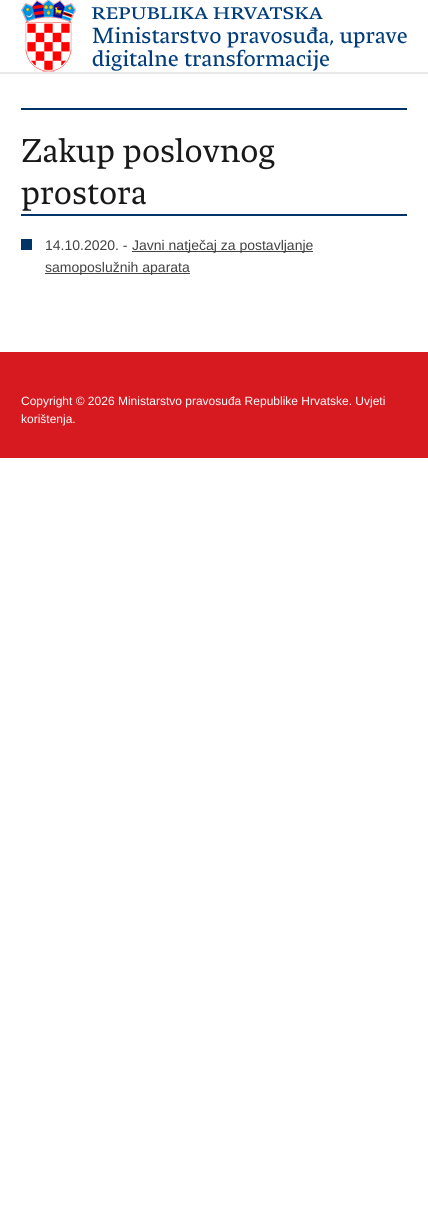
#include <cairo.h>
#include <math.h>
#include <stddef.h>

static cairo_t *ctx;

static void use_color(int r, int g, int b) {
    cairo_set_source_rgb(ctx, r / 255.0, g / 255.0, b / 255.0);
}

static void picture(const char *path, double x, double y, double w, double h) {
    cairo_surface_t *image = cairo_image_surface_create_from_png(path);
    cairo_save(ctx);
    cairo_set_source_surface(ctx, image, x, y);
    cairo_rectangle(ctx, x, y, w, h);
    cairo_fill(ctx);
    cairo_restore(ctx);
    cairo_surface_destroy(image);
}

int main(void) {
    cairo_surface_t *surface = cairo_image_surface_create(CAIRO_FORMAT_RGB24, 428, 1230);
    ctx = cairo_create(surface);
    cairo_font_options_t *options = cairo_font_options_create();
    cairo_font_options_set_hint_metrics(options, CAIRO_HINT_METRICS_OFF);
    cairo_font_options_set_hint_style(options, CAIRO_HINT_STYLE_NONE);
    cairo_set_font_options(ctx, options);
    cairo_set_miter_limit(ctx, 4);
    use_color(255, 255, 255);
    cairo_paint(ctx);
    use_color(233, 233, 233);
    cairo_rectangle(ctx, 0, 72, 428, 2);
    cairo_fill(ctx);
    picture("img1.png", 21, 0, 386, 72);
    use_color(0, 51, 102);
    cairo_rectangle(ctx, 21, 108, 386, 2);
    cairo_fill(ctx);
    cairo_rectangle(ctx, 21, 214, 386, 2);
    cairo_fill(ctx);
    cairo_select_font_face(ctx, "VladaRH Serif", CAIRO_FONT_SLANT_NORMAL, CAIRO_FONT_WEIGHT_NORMAL);
    cairo_set_font_size(ctx, 35);
    use_color(25, 25, 25);
    cairo_move_to(ctx, 21, 162);
    cairo_show_text(ctx, "Zakup poslovnog");
    cairo_move_to(ctx, 21, 204);
    cairo_show_text(ctx, "prostora");
    use_color(0, 51, 102);
    cairo_rectangle(ctx, 21, 239, 11, 11);
    cairo_fill(ctx);
    cairo_select_font_face(ctx, "Liberation Sans", CAIRO_FONT_SLANT_NORMAL, CAIRO_FONT_WEIGHT_NORMAL);
    cairo_set_font_size(ctx, 14);
    use_color(66, 66, 66);
    cairo_move_to(ctx, 45, 250);
    cairo_show_text(ctx, "14.10.2020. -");
    cairo_rectangle(ctx, 132, 251, 181, 1);
    cairo_fill(ctx);
    cairo_move_to(ctx, 132, 250);
    cairo_show_text(ctx, "Javni natječaj za postavljanje");
    cairo_rectangle(ctx, 45, 273, 145, 1);
    cairo_fill(ctx);
    cairo_move_to(ctx, 45, 272);
    cairo_show_text(ctx, "samoposlužnih aparata");
    use_color(215, 25, 32);
    cairo_rectangle(ctx, 0, 352, 428, 106);
    cairo_fill(ctx);
    cairo_set_font_size(ctx, 12);
    use_color(255, 255, 255);
    cairo_move_to(ctx, 21, 405);
    cairo_show_text(ctx, "Copyright © 2026 Ministarstvo pravosuđa Republike Hrvatske. Uvjeti");
    cairo_move_to(ctx, 21, 423);
    cairo_show_text(ctx, "korištenja.");
    cairo_surface_write_to_png(surface, "result.png");
    cairo_font_options_destroy(options);
    cairo_destroy(ctx);
    cairo_surface_destroy(surface);
    return 0;
}
